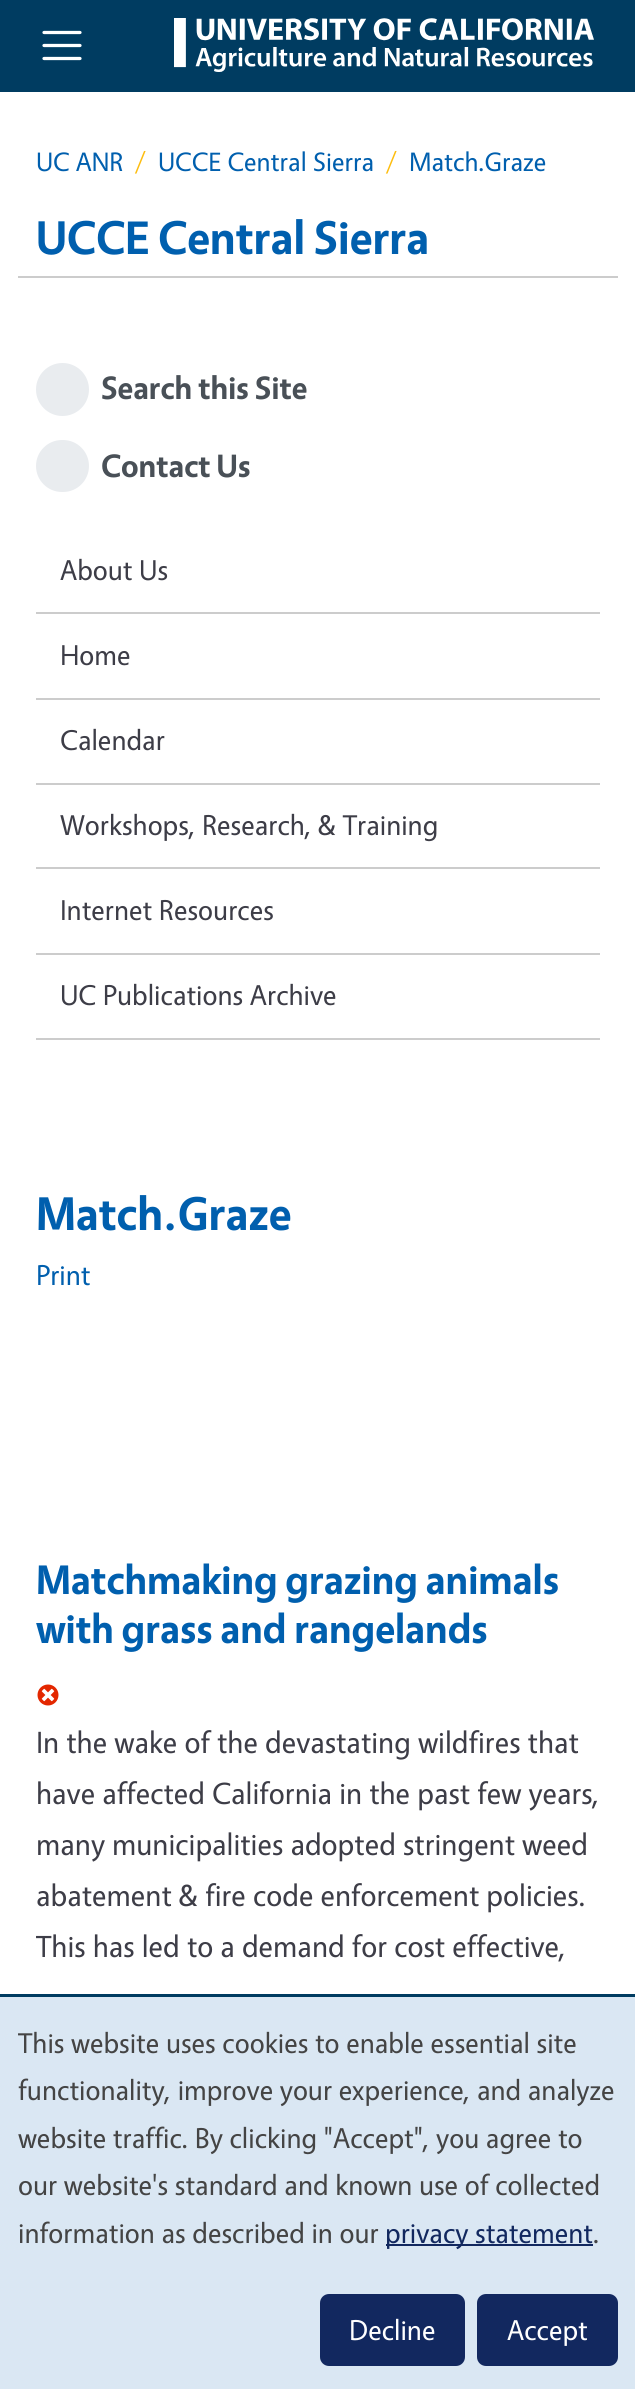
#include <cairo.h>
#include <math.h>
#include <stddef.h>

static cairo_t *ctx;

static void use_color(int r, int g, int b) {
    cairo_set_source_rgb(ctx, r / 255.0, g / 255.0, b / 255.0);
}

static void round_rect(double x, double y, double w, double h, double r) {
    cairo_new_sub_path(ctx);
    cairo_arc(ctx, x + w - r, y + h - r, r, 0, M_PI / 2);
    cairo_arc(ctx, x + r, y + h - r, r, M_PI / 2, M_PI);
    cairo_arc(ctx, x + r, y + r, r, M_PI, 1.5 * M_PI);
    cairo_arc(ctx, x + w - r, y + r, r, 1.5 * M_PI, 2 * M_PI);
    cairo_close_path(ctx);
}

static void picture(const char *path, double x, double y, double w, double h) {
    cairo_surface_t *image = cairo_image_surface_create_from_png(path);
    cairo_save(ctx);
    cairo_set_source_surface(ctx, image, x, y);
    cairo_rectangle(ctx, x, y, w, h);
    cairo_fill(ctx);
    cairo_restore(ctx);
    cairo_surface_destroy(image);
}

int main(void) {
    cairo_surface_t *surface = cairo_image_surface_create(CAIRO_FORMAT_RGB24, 635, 2389);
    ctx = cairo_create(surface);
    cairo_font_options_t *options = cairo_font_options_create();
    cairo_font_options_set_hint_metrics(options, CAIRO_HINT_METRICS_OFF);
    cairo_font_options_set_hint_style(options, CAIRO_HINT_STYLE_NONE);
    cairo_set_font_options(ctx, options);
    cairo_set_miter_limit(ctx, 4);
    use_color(255, 255, 255);
    cairo_paint(ctx);
    use_color(0, 60, 97);
    cairo_rectangle(ctx, 0, 0, 635, 92);
    cairo_fill(ctx);
    cairo_new_path(ctx);
    cairo_move_to(ctx, 44, 32.5);
    cairo_line_to(ctx, 80, 32.5);
    cairo_move_to(ctx, 44, 45.5);
    cairo_line_to(ctx, 80, 45.5);
    cairo_move_to(ctx, 44, 58.5);
    cairo_line_to(ctx, 80, 58.5);
    use_color(255, 255, 255);
    cairo_set_line_width(ctx, 3.2);
    cairo_set_line_cap(ctx, CAIRO_LINE_CAP_ROUND);
    cairo_stroke(ctx);
    picture("img1.png", 174, 18, 420, 54);
    cairo_select_font_face(ctx, "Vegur", CAIRO_FONT_SLANT_NORMAL, CAIRO_FONT_WEIGHT_NORMAL);
    cairo_set_font_size(ctx, 26.75);
    use_color(0, 95, 174);
    cairo_move_to(ctx, 36, 171);
    cairo_show_text(ctx, "UC ANR");
    use_color(253, 189, 16);
    cairo_move_to(ctx, 135, 171);
    cairo_show_text(ctx, "/");
    use_color(0, 95, 174);
    cairo_move_to(ctx, 158, 171);
    cairo_show_text(ctx, "UCCE Central Sierra");
    use_color(253, 189, 16);
    cairo_move_to(ctx, 386, 171);
    cairo_show_text(ctx, "/");
    use_color(0, 95, 174);
    cairo_move_to(ctx, 409, 171);
    cairo_show_text(ctx, "Match.Graze");
    use_color(204, 204, 204);
    cairo_rectangle(ctx, 18, 276, 600, 2);
    cairo_fill(ctx);
    cairo_select_font_face(ctx, "Vegur", CAIRO_FONT_SLANT_NORMAL, CAIRO_FONT_WEIGHT_BOLD);
    cairo_set_font_size(ctx, 47.5);
    use_color(0, 95, 174);
    cairo_move_to(ctx, 36, 254);
    cairo_show_text(ctx, "UCCE Central Sierra");
    use_color(233, 236, 239);
    cairo_new_path(ctx);
    cairo_arc(ctx, 62.5, 389.5, 26.5, 0, 2 * M_PI);
    cairo_fill(ctx);
    cairo_set_font_size(ctx, 32.5);
    use_color(73, 80, 87);
    cairo_move_to(ctx, 101, 399);
    cairo_show_text(ctx, "Search this Site");
    use_color(233, 236, 239);
    round_rect(36, 440, 53, 52, 26);
    cairo_fill(ctx);
    use_color(73, 80, 87);
    cairo_move_to(ctx, 101, 477);
    cairo_show_text(ctx, "Contact Us");
    use_color(204, 204, 204);
    cairo_rectangle(ctx, 36, 612, 564, 2);
    cairo_fill(ctx);
    cairo_select_font_face(ctx, "Vegur", CAIRO_FONT_SLANT_NORMAL, CAIRO_FONT_WEIGHT_NORMAL);
    cairo_set_font_size(ctx, 28.8);
    use_color(61, 61, 71);
    cairo_move_to(ctx, 60, 580);
    cairo_show_text(ctx, "About Us");
    use_color(204, 204, 204);
    cairo_rectangle(ctx, 36, 698, 564, 2);
    cairo_fill(ctx);
    use_color(61, 61, 71);
    cairo_move_to(ctx, 60, 665);
    cairo_show_text(ctx, "Home");
    use_color(204, 204, 204);
    cairo_rectangle(ctx, 36, 783, 564, 2);
    cairo_fill(ctx);
    use_color(61, 61, 71);
    cairo_move_to(ctx, 60, 750);
    cairo_show_text(ctx, "Calendar");
    use_color(204, 204, 204);
    cairo_rectangle(ctx, 36, 867, 564, 2);
    cairo_fill(ctx);
    use_color(61, 61, 71);
    cairo_move_to(ctx, 60, 835);
    cairo_show_text(ctx, "Workshops, Research, & Training");
    use_color(204, 204, 204);
    cairo_rectangle(ctx, 36, 953, 564, 2);
    cairo_fill(ctx);
    use_color(61, 61, 71);
    cairo_move_to(ctx, 60, 920);
    cairo_show_text(ctx, "Internet Resources");
    use_color(204, 204, 204);
    cairo_rectangle(ctx, 36, 1038, 564, 2);
    cairo_fill(ctx);
    use_color(61, 61, 71);
    cairo_move_to(ctx, 60, 1005);
    cairo_show_text(ctx, "UC Publications Archive");
    cairo_select_font_face(ctx, "Vegur", CAIRO_FONT_SLANT_NORMAL, CAIRO_FONT_WEIGHT_BOLD);
    cairo_set_font_size(ctx, 47.5);
    use_color(0, 95, 174);
    cairo_move_to(ctx, 36, 1230);
    cairo_show_text(ctx, "Match.Graze");
    cairo_select_font_face(ctx, "Vegur", CAIRO_FONT_SLANT_NORMAL, CAIRO_FONT_WEIGHT_NORMAL);
    cairo_set_font_size(ctx, 28.8);
    cairo_move_to(ctx, 36, 1285);
    cairo_show_text(ctx, "Print");
    cairo_select_font_face(ctx, "Vegur", CAIRO_FONT_SLANT_NORMAL, CAIRO_FONT_WEIGHT_BOLD);
    cairo_set_font_size(ctx, 41.5);
    cairo_move_to(ctx, 36, 1594);
    cairo_show_text(ctx, "Matchmaking grazing animals");
    cairo_move_to(ctx, 36, 1643);
    cairo_show_text(ctx, "with grass and rangelands");
    picture("img2.png", 37, 1684, 22, 22);
    cairo_select_font_face(ctx, "Vegur", CAIRO_FONT_SLANT_NORMAL, CAIRO_FONT_WEIGHT_NORMAL);
    cairo_set_font_size(ctx, 30.8);
    use_color(61, 61, 71);
    cairo_move_to(ctx, 36, 1753);
    cairo_show_text(ctx, "In the wake of the devastating wildfires that");
    cairo_move_to(ctx, 36, 1804);
    cairo_show_text(ctx, "have affected California in the past few years,");
    cairo_move_to(ctx, 36, 1855);
    cairo_show_text(ctx, "many municipalities adopted stringent weed");
    cairo_move_to(ctx, 36, 1906);
    cairo_show_text(ctx, "abatement & fire code enforcement policies.");
    cairo_move_to(ctx, 36, 1957);
    cairo_show_text(ctx, "This has led to a demand for cost effective,");
    use_color(218, 231, 243);
    cairo_rectangle(ctx, 0, 1997, 635, 392);
    cairo_fill(ctx);
    use_color(0, 60, 97);
    cairo_rectangle(ctx, 0, 1994, 635, 3);
    cairo_fill(ctx);
    cairo_set_font_size(ctx, 28.8);
    use_color(68, 68, 68);
    cairo_move_to(ctx, 18, 2053);
    cairo_show_text(ctx, "This website uses cookies to enable essential site");
    cairo_move_to(ctx, 18, 2100);
    cairo_show_text(ctx, "functionality, improve your experience, and analyze");
    cairo_move_to(ctx, 18, 2148);
    cairo_show_text(ctx, "website traffic. By clicking \"Accept\", you agree to");
    cairo_move_to(ctx, 18, 2195);
    cairo_show_text(ctx, "our website's standard and known use of collected");
    cairo_move_to(ctx, 18, 2243);
    cairo_show_text(ctx, "information as described in our");
    use_color(18, 40, 95);
    cairo_rectangle(ctx, 386, 2244, 207, 2);
    cairo_fill(ctx);
    cairo_move_to(ctx, 385, 2243);
    cairo_show_text(ctx, "privacy statement");
    use_color(68, 68, 68);
    cairo_move_to(ctx, 593, 2243);
    cairo_show_text(ctx, ".");
    use_color(18, 40, 95);
    round_rect(322.5, 2296.5, 140, 67, 6.5);
    cairo_fill_preserve(ctx);
    cairo_set_line_width(ctx, 5);
    cairo_set_line_cap(ctx, CAIRO_LINE_CAP_BUTT);
    cairo_stroke(ctx);
    use_color(255, 255, 255);
    cairo_move_to(ctx, 349, 2340);
    cairo_show_text(ctx, "Decline");
    use_color(18, 40, 95);
    round_rect(479.5, 2296.5, 136, 67, 6.5);
    cairo_fill_preserve(ctx);
    cairo_stroke(ctx);
    use_color(255, 255, 255);
    cairo_move_to(ctx, 507, 2340);
    cairo_show_text(ctx, "Accept");
    cairo_surface_write_to_png(surface, "result.png");
    cairo_font_options_destroy(options);
    cairo_destroy(ctx);
    cairo_surface_destroy(surface);
    return 0;
}
